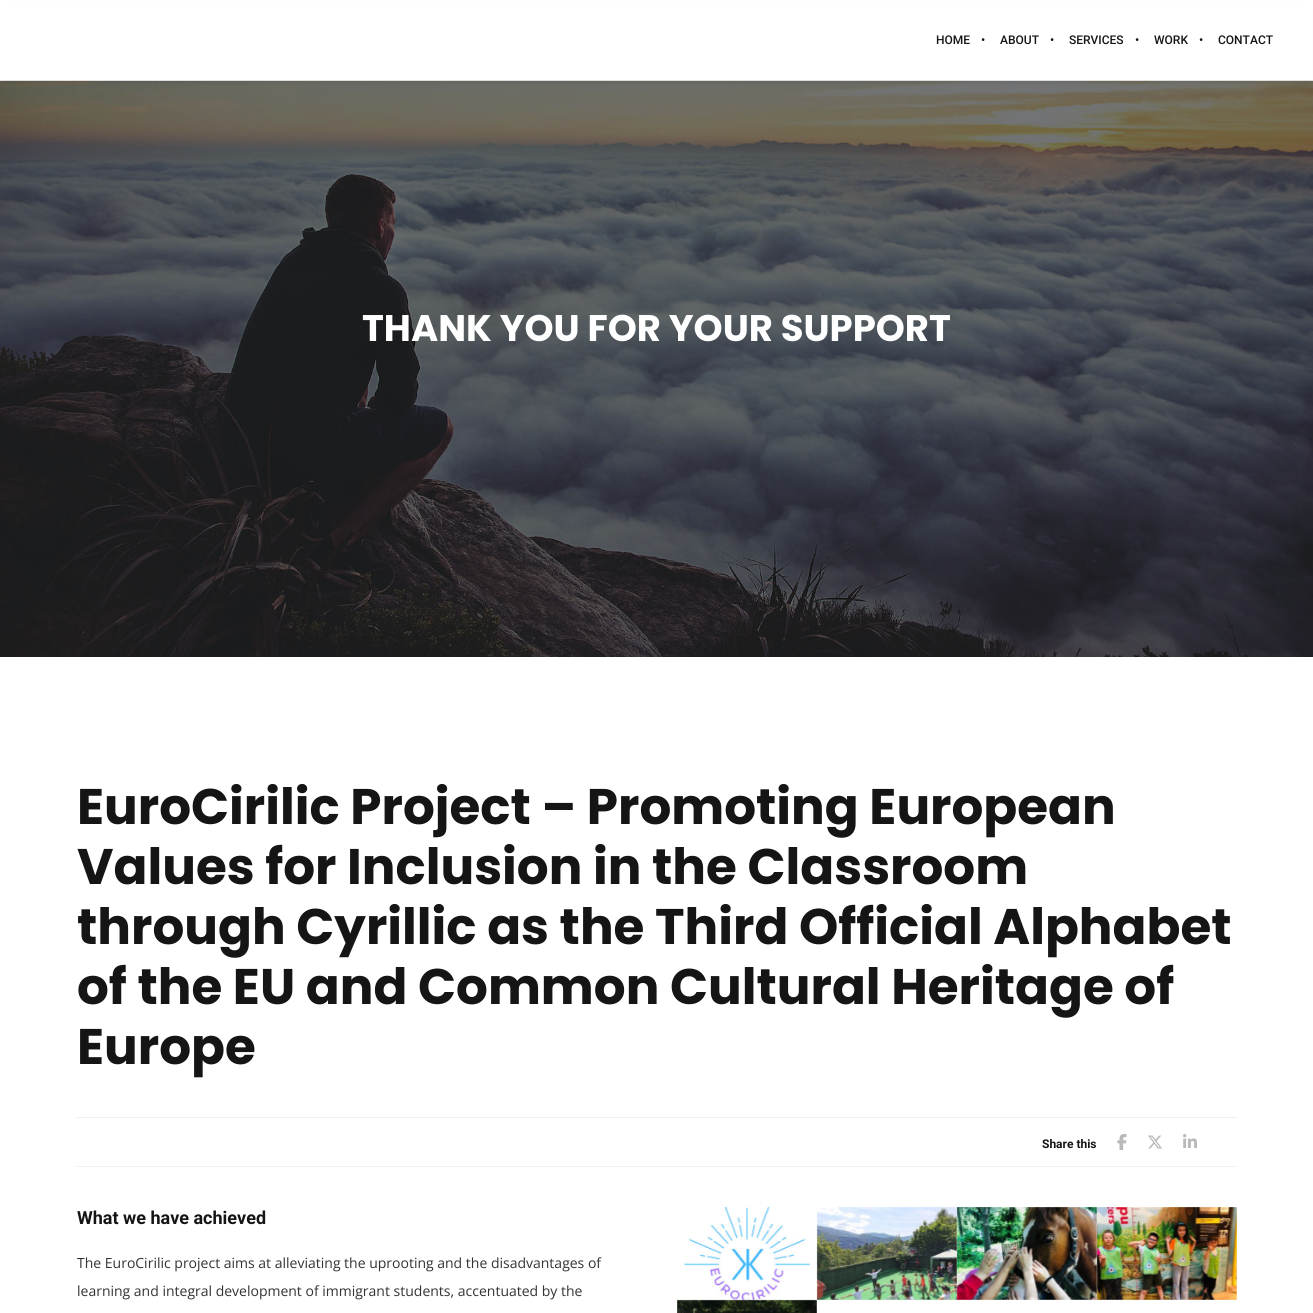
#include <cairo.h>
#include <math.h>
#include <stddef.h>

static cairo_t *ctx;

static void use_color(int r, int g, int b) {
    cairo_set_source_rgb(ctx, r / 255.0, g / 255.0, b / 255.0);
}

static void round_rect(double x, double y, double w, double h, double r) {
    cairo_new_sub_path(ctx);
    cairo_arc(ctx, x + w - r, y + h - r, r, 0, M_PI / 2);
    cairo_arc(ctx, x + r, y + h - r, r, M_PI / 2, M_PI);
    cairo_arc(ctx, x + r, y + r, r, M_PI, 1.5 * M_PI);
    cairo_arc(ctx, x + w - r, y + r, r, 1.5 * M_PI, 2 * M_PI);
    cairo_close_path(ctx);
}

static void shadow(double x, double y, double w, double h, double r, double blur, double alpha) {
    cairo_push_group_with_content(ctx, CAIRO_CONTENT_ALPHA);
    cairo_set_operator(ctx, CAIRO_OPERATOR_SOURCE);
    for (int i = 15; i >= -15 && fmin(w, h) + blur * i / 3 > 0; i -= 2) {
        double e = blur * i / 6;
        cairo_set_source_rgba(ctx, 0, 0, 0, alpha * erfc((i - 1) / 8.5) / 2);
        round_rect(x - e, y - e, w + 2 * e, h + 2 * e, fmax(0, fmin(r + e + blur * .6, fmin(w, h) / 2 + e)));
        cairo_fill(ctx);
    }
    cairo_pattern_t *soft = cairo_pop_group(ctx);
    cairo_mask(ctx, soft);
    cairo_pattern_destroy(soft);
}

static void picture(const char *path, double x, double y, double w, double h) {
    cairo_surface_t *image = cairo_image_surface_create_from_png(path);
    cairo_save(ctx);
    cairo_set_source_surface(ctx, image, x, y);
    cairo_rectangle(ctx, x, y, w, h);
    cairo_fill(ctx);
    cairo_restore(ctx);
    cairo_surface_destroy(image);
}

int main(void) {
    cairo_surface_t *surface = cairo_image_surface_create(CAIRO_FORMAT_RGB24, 1313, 1313);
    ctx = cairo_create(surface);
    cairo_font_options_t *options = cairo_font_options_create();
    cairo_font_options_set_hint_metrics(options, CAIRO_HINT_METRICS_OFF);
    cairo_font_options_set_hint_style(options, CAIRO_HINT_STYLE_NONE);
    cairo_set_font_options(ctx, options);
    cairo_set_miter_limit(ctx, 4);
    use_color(255, 255, 255);
    cairo_paint(ctx);
    picture("img1.png", 0, 81, 1313, 576);
    use_color(0, 0, 0);
    shadow(4, 9, 1305, 73, 0, 2.5, 0.1);
    use_color(255, 255, 255);
    cairo_rectangle(ctx, 1, 6, 1311, 74);
    cairo_fill(ctx);
    use_color(221, 221, 221);
    cairo_rectangle(ctx, 0, 80, 1313, 1);
    cairo_fill(ctx);
    cairo_select_font_face(ctx, "Roboto Medium", CAIRO_FONT_SLANT_NORMAL, CAIRO_FONT_WEIGHT_NORMAL);
    cairo_set_font_size(ctx, 12);
    use_color(21, 21, 21);
    cairo_move_to(ctx, 936, 44);
    cairo_show_text(ctx, "HOME");
    cairo_move_to(ctx, 981, 44);
    cairo_show_text(ctx, "•");
    cairo_move_to(ctx, 1000, 44);
    cairo_show_text(ctx, "ABOUT");
    cairo_move_to(ctx, 1050, 44);
    cairo_show_text(ctx, "•");
    cairo_move_to(ctx, 1069, 44);
    cairo_show_text(ctx, "SERVICES");
    cairo_move_to(ctx, 1135, 44);
    cairo_show_text(ctx, "•");
    cairo_move_to(ctx, 1154, 44);
    cairo_show_text(ctx, "WORK");
    cairo_move_to(ctx, 1199, 44);
    cairo_show_text(ctx, "•");
    cairo_move_to(ctx, 1218, 44);
    cairo_show_text(ctx, "CONTACT");
    cairo_select_font_face(ctx, "Poppins", CAIRO_FONT_SLANT_NORMAL, CAIRO_FONT_WEIGHT_BOLD);
    cairo_set_font_size(ctx, 37);
    use_color(255, 255, 255);
    cairo_move_to(ctx, 362, 341);
    cairo_show_text(ctx, "THANK YOU FOR YOUR SUPPORT");
    cairo_set_font_size(ctx, 50);
    use_color(21, 21, 21);
    cairo_move_to(ctx, 77, 824);
    cairo_show_text(ctx, "EuroCirilic Project – Promoting European");
    cairo_move_to(ctx, 77, 884);
    cairo_show_text(ctx, "Values for Inclusion in the Classroom");
    cairo_move_to(ctx, 77, 944);
    cairo_show_text(ctx, "through Cyrillic as the Third Official Alphabet");
    cairo_move_to(ctx, 77, 1004);
    cairo_show_text(ctx, "of the EU and Common Cultural Heritage of");
    cairo_move_to(ctx, 77, 1064);
    cairo_show_text(ctx, "Europe");
    use_color(239, 239, 239);
    cairo_rectangle(ctx, 77, 1117, 1160, 1);
    cairo_fill(ctx);
    cairo_rectangle(ctx, 77, 1166, 1160, 1);
    cairo_fill(ctx);
    cairo_select_font_face(ctx, "Roboto", CAIRO_FONT_SLANT_NORMAL, CAIRO_FONT_WEIGHT_BOLD);
    cairo_set_font_size(ctx, 12);
    use_color(21, 21, 21);
    cairo_move_to(ctx, 1042, 1148);
    cairo_show_text(ctx, "Share this");
    picture("img2.png", 1117, 1134, 10, 16);
    picture("img3.png", 1148, 1135, 14, 14);
    picture("img4.png", 1183, 1134, 14, 14);
    cairo_set_font_size(ctx, 18);
    cairo_move_to(ctx, 77, 1224);
    cairo_show_text(ctx, "What we have achieved");
    cairo_select_font_face(ctx, "Open Sans", CAIRO_FONT_SLANT_NORMAL, CAIRO_FONT_WEIGHT_NORMAL);
    cairo_set_font_size(ctx, 14);
    use_color(51, 51, 51);
    cairo_move_to(ctx, 77, 1268);
    cairo_show_text(ctx, "The EuroCirilic project aims at alleviating the uprooting and the disadvantages of");
    cairo_move_to(ctx, 77, 1296);
    cairo_show_text(ctx, "learning and integral development of immigrant students, accentuated by the");
    picture("img5.png", 683, 1207, 128, 93);
    picture("img6.png", 816, 1207, 141, 93);
    picture("img7.png", 956, 1207, 141, 93);
    picture("img8.png", 1096, 1207, 141, 93);
    picture("img9.png", 677, 1299, 140, 14);
    cairo_surface_write_to_png(surface, "result.png");
    cairo_font_options_destroy(options);
    cairo_destroy(ctx);
    cairo_surface_destroy(surface);
    return 0;
}
